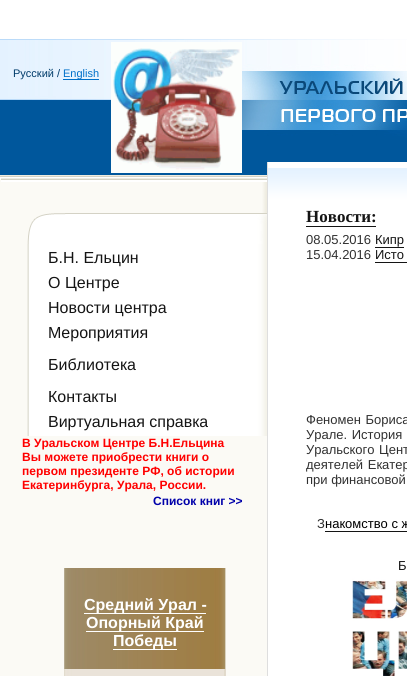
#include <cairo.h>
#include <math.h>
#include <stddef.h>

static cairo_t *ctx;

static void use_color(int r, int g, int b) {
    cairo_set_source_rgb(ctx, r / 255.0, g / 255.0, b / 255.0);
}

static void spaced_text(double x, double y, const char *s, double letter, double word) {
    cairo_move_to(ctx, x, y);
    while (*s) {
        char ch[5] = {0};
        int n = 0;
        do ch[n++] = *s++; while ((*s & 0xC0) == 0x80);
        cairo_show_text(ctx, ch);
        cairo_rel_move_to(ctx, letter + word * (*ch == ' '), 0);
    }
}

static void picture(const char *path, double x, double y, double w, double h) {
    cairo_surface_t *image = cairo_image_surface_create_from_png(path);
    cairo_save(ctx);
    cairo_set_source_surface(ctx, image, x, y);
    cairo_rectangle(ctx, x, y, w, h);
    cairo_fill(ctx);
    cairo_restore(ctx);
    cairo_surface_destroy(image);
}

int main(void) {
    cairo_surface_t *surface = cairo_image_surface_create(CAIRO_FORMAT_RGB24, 407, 676);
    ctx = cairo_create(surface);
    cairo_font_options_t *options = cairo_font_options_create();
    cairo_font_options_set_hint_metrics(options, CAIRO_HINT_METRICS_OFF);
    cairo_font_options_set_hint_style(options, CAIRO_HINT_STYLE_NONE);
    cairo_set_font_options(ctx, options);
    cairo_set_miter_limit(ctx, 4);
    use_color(251, 250, 245);
    cairo_paint(ctx);
    picture("img1.png", 0, 0, 407, 178);
    picture("img2.png", 0, 39, 407, 136);
    cairo_select_font_face(ctx, "Liberation Sans", CAIRO_FONT_SLANT_NORMAL, CAIRO_FONT_WEIGHT_NORMAL);
    cairo_set_font_size(ctx, 11);
    use_color(0, 59, 106);
    cairo_move_to(ctx, 13, 77);
    cairo_show_text(ctx, "Русский /");
    use_color(0, 112, 201);
    cairo_rectangle(ctx, 63, 79, 36, 1);
    cairo_fill(ctx);
    cairo_move_to(ctx, 63, 77);
    cairo_show_text(ctx, "English");
    picture("img3.png", 111, 42, 131, 131);
    picture("img4.png", 0, 178, 267, 35);
    picture("img5.png", 27, 213, 240, 31);
    picture("img6.png", 27, 244, 240, 192);
    cairo_set_font_size(ctx, 16);
    use_color(20, 20, 20);
    cairo_move_to(ctx, 48, 263);
    cairo_show_text(ctx, "Б.Н. Ельцин");
    cairo_move_to(ctx, 48, 288);
    cairo_show_text(ctx, "О Центре");
    cairo_move_to(ctx, 48, 313);
    cairo_show_text(ctx, "Новости центра");
    cairo_move_to(ctx, 48, 338);
    cairo_show_text(ctx, "Мероприятия");
    cairo_move_to(ctx, 48, 370);
    cairo_show_text(ctx, "Библиотека");
    cairo_move_to(ctx, 48, 402);
    cairo_show_text(ctx, "Контакты");
    cairo_move_to(ctx, 48, 427);
    cairo_show_text(ctx, "Виртуальная справка");
    cairo_select_font_face(ctx, "Liberation Sans", CAIRO_FONT_SLANT_NORMAL, CAIRO_FONT_WEIGHT_BOLD);
    cairo_set_font_size(ctx, 12);
    use_color(255, 0, 0);
    cairo_move_to(ctx, 22, 447);
    cairo_show_text(ctx, "В Уральском Центре Б.Н.Ельцина");
    cairo_move_to(ctx, 22, 461);
    cairo_show_text(ctx, "Вы можете приобрести книги о");
    cairo_move_to(ctx, 22, 475);
    cairo_show_text(ctx, "первом президенте РФ, об истории");
    cairo_move_to(ctx, 22, 489);
    cairo_show_text(ctx, "Екатеринбурга, Урала, России.");
    use_color(0, 0, 170);
    cairo_move_to(ctx, 153, 505);
    cairo_show_text(ctx, "Список книг >>");
    picture("img7.png", 64, 568, 162, 101);
    use_color(255, 255, 255);
    cairo_rectangle(ctx, 84, 613, 122, 1);
    cairo_fill(ctx);
    cairo_set_font_size(ctx, 16);
    cairo_move_to(ctx, 84, 610);
    cairo_show_text(ctx, "Средний Урал -");
    cairo_rectangle(ctx, 86, 631, 118, 1);
    cairo_fill(ctx);
    cairo_move_to(ctx, 86, 628);
    cairo_show_text(ctx, "Опорный Край");
    cairo_rectangle(ctx, 113, 649, 64, 1);
    cairo_fill(ctx);
    cairo_move_to(ctx, 113, 646);
    cairo_show_text(ctx, "Победы");
    picture("img8.png", 64, 669, 162, 7);
    cairo_rectangle(ctx, 268, 211, 139, 465);
    cairo_fill(ctx);
    picture("img9.png", 268, 162, 139, 49);
    use_color(222, 222, 222);
    cairo_rectangle(ctx, 267, 162, 1, 514);
    cairo_fill(ctx);
    cairo_select_font_face(ctx, "Liberation Serif", CAIRO_FONT_SLANT_NORMAL, CAIRO_FONT_WEIGHT_BOLD);
    cairo_set_font_size(ctx, 17);
    use_color(20, 20, 20);
    cairo_move_to(ctx, 306, 222);
    cairo_show_text(ctx, "Новости:");
    cairo_rectangle(ctx, 306, 226, 70, 1);
    cairo_fill(ctx);
    cairo_select_font_face(ctx, "Liberation Sans", CAIRO_FONT_SLANT_NORMAL, CAIRO_FONT_WEIGHT_NORMAL);
    cairo_set_font_size(ctx, 13);
    use_color(48, 48, 48);
    cairo_move_to(ctx, 306, 244);
    cairo_show_text(ctx, "08.05.2016");
    use_color(20, 20, 20);
    cairo_move_to(ctx, 375, 244);
    cairo_show_text(ctx, "Кипр");
    cairo_rectangle(ctx, 375, 247, 29, 1);
    cairo_fill(ctx);
    use_color(48, 48, 48);
    cairo_move_to(ctx, 306, 259);
    cairo_show_text(ctx, "15.04.2016");
    use_color(20, 20, 20);
    cairo_move_to(ctx, 375, 259);
    cairo_show_text(ctx, "Исто");
    cairo_rectangle(ctx, 375, 262, 32, 1);
    cairo_fill(ctx);
    use_color(48, 48, 48);
    spaced_text(306, 424, "Феномен Бориса", 0, 1);
    spaced_text(306, 439, "Урале. История", 0, 1);
    spaced_text(306, 454, "Уральского Цент", 0, 1);
    spaced_text(306, 469, "деятелей Екатер", 0, 1);
    cairo_move_to(ctx, 306, 484);
    cairo_show_text(ctx, "при финансовой");
    cairo_move_to(ctx, 317, 528);
    cairo_show_text(ctx, "З");
    use_color(0, 0, 0);
    cairo_move_to(ctx, 325, 528);
    cairo_show_text(ctx, "накомство с ж");
    use_color(20, 20, 20);
    cairo_rectangle(ctx, 325, 531, 82, 1);
    cairo_fill(ctx);
    cairo_move_to(ctx, 398, 570);
    cairo_show_text(ctx, "Б");
    picture("img10.png", 352, 573, 55, 103);
    cairo_surface_write_to_png(surface, "result.png");
    cairo_font_options_destroy(options);
    cairo_destroy(ctx);
    cairo_surface_destroy(surface);
    return 0;
}
